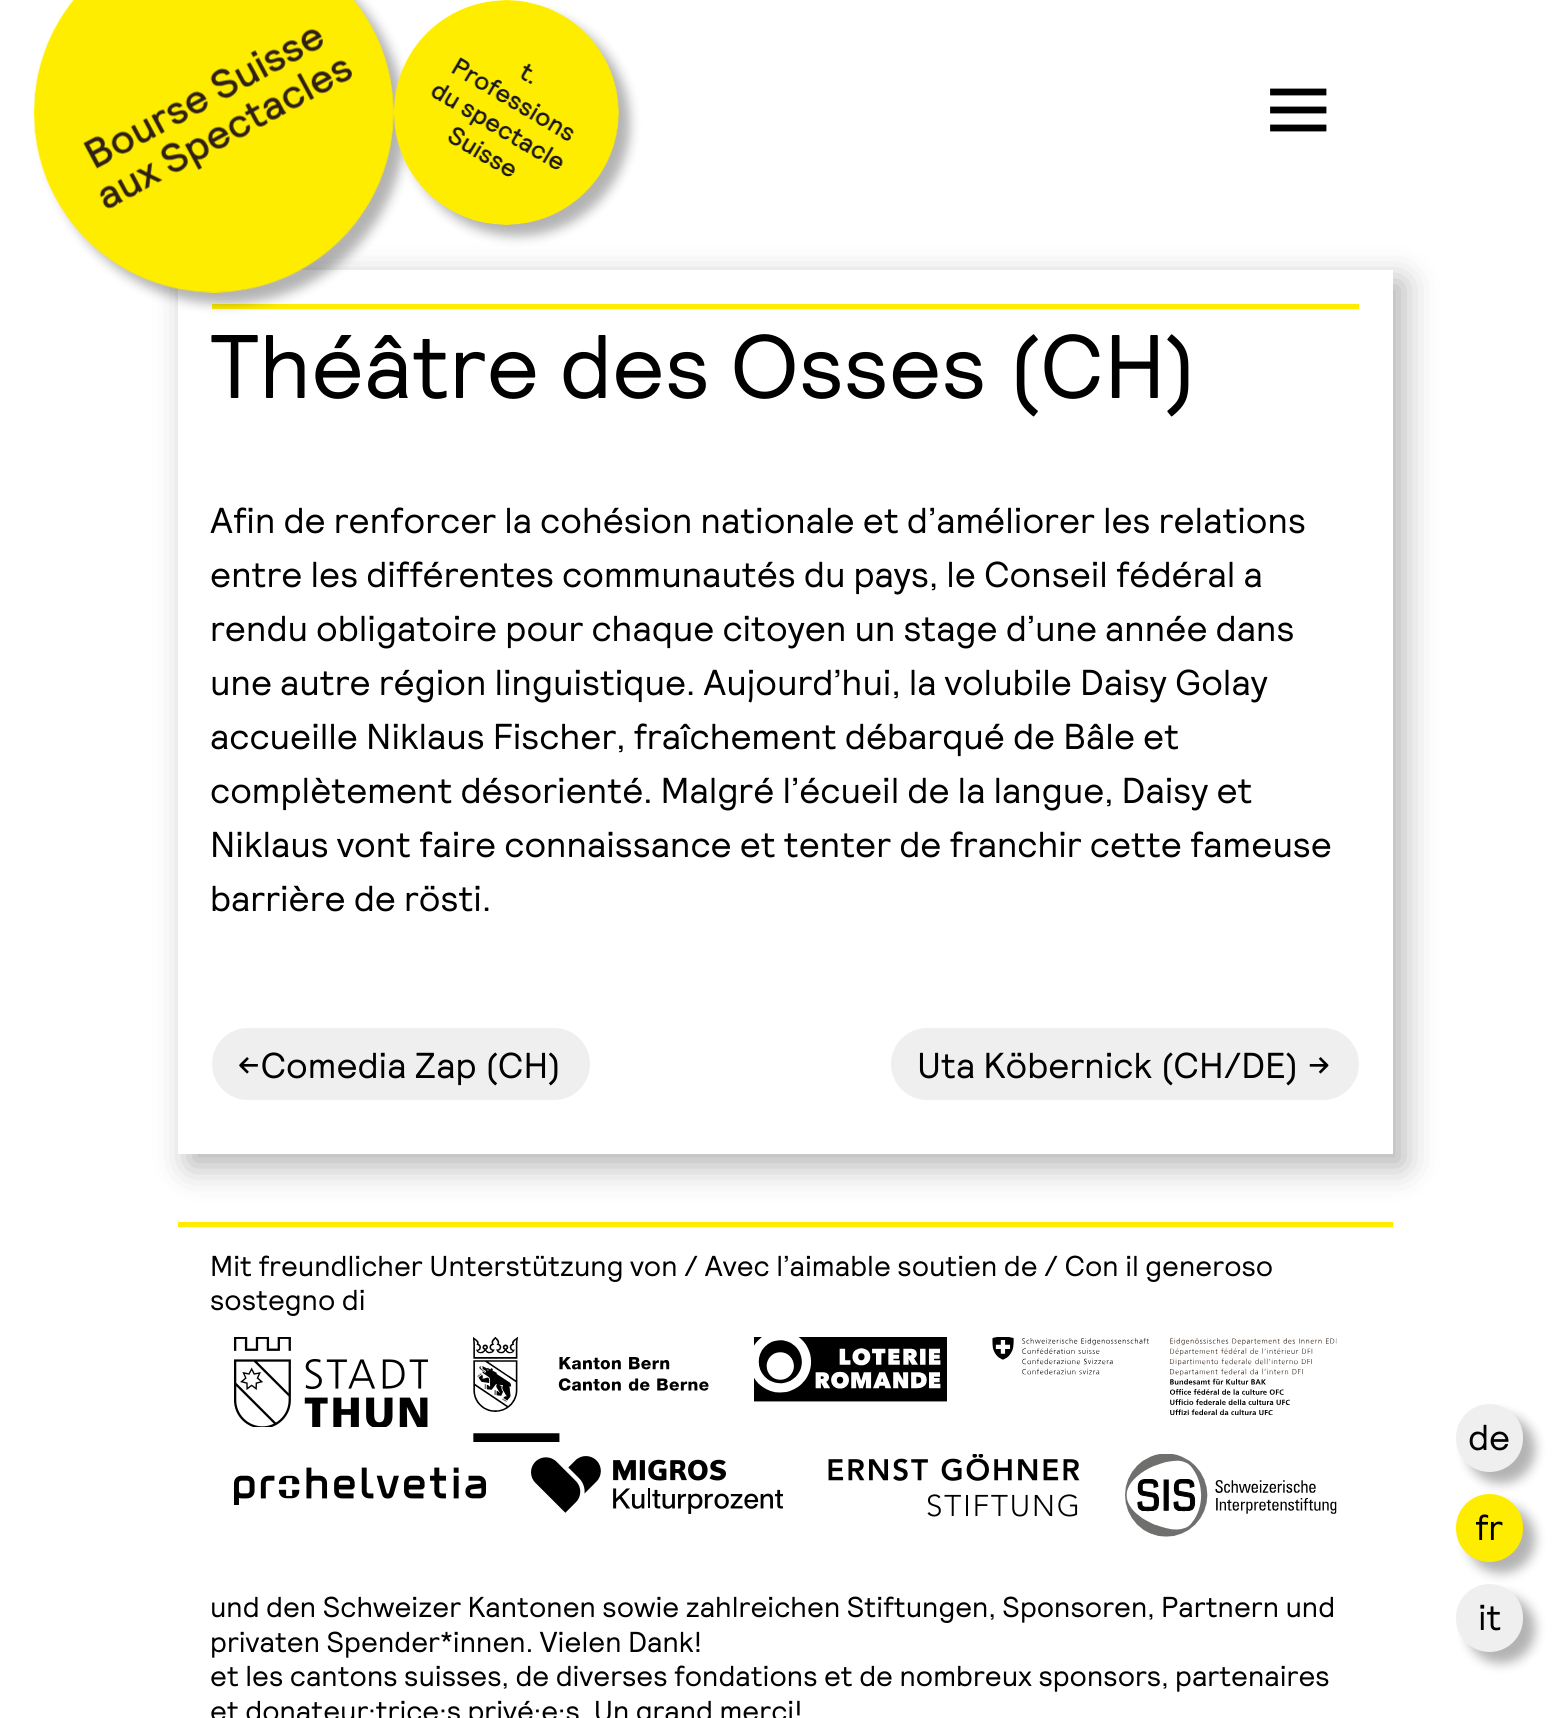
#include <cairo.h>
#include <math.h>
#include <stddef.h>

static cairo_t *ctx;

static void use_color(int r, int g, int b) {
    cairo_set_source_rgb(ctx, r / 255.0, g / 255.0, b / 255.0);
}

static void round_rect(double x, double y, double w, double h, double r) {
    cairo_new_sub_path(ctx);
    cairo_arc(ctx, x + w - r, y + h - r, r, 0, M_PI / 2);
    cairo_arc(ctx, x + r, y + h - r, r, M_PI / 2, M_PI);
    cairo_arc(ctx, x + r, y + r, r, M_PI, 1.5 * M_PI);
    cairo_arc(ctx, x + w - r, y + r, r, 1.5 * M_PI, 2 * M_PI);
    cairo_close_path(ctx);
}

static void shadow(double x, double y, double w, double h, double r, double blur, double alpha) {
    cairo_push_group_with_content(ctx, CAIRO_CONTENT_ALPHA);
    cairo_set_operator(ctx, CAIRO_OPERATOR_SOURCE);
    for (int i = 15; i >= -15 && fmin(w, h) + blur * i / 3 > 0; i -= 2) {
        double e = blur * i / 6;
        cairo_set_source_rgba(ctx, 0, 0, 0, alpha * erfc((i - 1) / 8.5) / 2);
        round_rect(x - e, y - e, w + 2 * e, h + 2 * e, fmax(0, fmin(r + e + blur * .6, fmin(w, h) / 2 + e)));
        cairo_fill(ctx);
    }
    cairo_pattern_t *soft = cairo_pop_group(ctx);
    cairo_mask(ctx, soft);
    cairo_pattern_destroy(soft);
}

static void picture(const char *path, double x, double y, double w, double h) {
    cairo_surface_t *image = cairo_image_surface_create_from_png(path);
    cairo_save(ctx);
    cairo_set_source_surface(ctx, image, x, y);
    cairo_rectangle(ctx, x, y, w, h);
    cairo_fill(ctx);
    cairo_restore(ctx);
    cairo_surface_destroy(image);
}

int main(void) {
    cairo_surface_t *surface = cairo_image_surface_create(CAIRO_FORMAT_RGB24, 1568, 1718);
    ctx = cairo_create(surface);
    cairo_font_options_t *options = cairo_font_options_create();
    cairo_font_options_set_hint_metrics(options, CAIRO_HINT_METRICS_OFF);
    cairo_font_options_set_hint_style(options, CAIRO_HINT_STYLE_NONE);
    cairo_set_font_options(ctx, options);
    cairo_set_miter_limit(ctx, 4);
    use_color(255, 255, 255);
    cairo_paint(ctx);
    use_color(0, 0, 0);
    shadow(189, 281, 1215, 885, 0, 17, 0.3);
    use_color(255, 255, 255);
    cairo_rectangle(ctx, 178, 270, 1215, 884);
    cairo_fill(ctx);
    use_color(255, 237, 0);
    cairo_rectangle(ctx, 212, 304, 1147, 5);
    cairo_fill(ctx);
    use_color(0, 0, 0);
    shadow(45, -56, 360, 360, 180, 5.5, 0.3);
    picture("img1.png", 34, 0, 360, 293);
    shadow(405, 11, 225, 225, 112.5, 5.5, 0.3);
    picture("img2.png", 393, 0, 226, 225);
    cairo_new_path(ctx);
    cairo_move_to(ctx, 1273.5, 92);
    cairo_line_to(ctx, 1323, 92);
    cairo_move_to(ctx, 1273.5, 110);
    cairo_line_to(ctx, 1323, 110);
    cairo_move_to(ctx, 1273.5, 128);
    cairo_line_to(ctx, 1323, 128);
    use_color(0, 0, 0);
    cairo_set_line_width(ctx, 6.8);
    cairo_set_line_cap(ctx, CAIRO_LINE_CAP_SQUARE);
    cairo_stroke(ctx);
    cairo_select_font_face(ctx, "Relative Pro", CAIRO_FONT_SLANT_NORMAL, CAIRO_FONT_WEIGHT_NORMAL);
    cairo_set_font_size(ctx, 90);
    cairo_move_to(ctx, 210, 398);
    cairo_show_text(ctx, "Théâtre des Osses (CH)");
    cairo_set_font_size(ctx, 36);
    cairo_move_to(ctx, 210, 533);
    cairo_show_text(ctx, "Afin de renforcer la cohésion nationale et d’améliorer les relations");
    cairo_move_to(ctx, 210, 587);
    cairo_show_text(ctx, "entre les différentes communautés du pays, le Conseil fédéral a");
    cairo_move_to(ctx, 210, 641);
    cairo_show_text(ctx, "rendu obligatoire pour chaque citoyen un stage d’une année dans");
    cairo_move_to(ctx, 210, 695);
    cairo_show_text(ctx, "une autre région linguistique. Aujourd’hui, la volubile Daisy Golay");
    cairo_move_to(ctx, 210, 749);
    cairo_show_text(ctx, "accueille Niklaus Fischer, fraîchement débarqué de Bâle et");
    cairo_move_to(ctx, 210, 803);
    cairo_show_text(ctx, "complètement désorienté. Malgré l’écueil de la langue, Daisy et");
    cairo_move_to(ctx, 210, 857);
    cairo_show_text(ctx, "Niklaus vont faire connaissance et tenter de franchir cette fameuse");
    cairo_move_to(ctx, 210, 911);
    cairo_show_text(ctx, "barrière de rösti.");
    use_color(239, 239, 239);
    round_rect(212, 1028, 378, 72, 36);
    cairo_fill(ctx);
    use_color(0, 0, 0);
    cairo_move_to(ctx, 237, 1078);
    cairo_show_text(ctx, "←Comedia Zap (CH)");
    use_color(239, 239, 239);
    round_rect(891, 1028, 468, 72, 36);
    cairo_fill(ctx);
    use_color(0, 0, 0);
    cairo_move_to(ctx, 917, 1078);
    cairo_show_text(ctx, "Uta Köbernick (CH/DE) →");
    use_color(255, 237, 0);
    cairo_rectangle(ctx, 178, 1222, 1215, 5);
    cairo_fill(ctx);
    cairo_set_font_size(ctx, 28.8);
    use_color(0, 0, 0);
    cairo_move_to(ctx, 210, 1276);
    cairo_show_text(ctx, "Mit freundlicher Unterstützung von / Avec l’aimable soutien de / Con il generoso");
    cairo_move_to(ctx, 210, 1310);
    cairo_show_text(ctx, "sostegno di");
    picture("img3.png", 234, 1337, 194, 90);
    picture("img4.png", 473, 1337, 236, 105);
    picture("img5.png", 754, 1337, 193, 65);
    picture("img6.png", 992, 1337, 345, 78);
    picture("img7.png", 234, 1467, 252, 38);
    picture("img8.png", 531, 1456, 252, 58);
    picture("img9.png", 828, 1454, 252, 63);
    picture("img10.png", 1125, 1454, 212, 83);
    cairo_move_to(ctx, 210, 1617);
    cairo_show_text(ctx, "und den Schweizer Kantonen sowie zahlreichen Stiftungen, Sponsoren, Partnern und");
    cairo_move_to(ctx, 210, 1652);
    cairo_show_text(ctx, "privaten Spender*innen. Vielen Dank!");
    cairo_move_to(ctx, 210, 1686);
    cairo_show_text(ctx, "et les cantons suisses, de diverses fondations et de nombreux sponsors, partenaires");
    cairo_move_to(ctx, 210, 1721);
    cairo_show_text(ctx, "et donateur·trice·s privé·e·s. Un grand merci!");
    use_color(0, 0, 0);
    shadow(1467, 1415, 68, 68, 34, 5.5, 0.3);
    use_color(239, 239, 239);
    round_rect(1456, 1404, 67, 68, 33.5);
    cairo_fill(ctx);
    cairo_set_font_size(ctx, 36);
    use_color(0, 0, 0);
    cairo_move_to(ctx, 1468, 1450);
    cairo_show_text(ctx, "de");
    use_color(0, 0, 0);
    shadow(1467, 1505, 68, 68, 34, 5.5, 0.3);
    use_color(255, 237, 0);
    round_rect(1456, 1494, 67, 68, 33.5);
    cairo_fill(ctx);
    use_color(0, 0, 0);
    cairo_move_to(ctx, 1475, 1540);
    cairo_show_text(ctx, "fr");
    use_color(0, 0, 0);
    shadow(1467, 1595, 68, 68, 34, 5.5, 0.3);
    use_color(239, 239, 239);
    round_rect(1456, 1584, 67, 68, 33.5);
    cairo_fill(ctx);
    use_color(0, 0, 0);
    cairo_move_to(ctx, 1478, 1630);
    cairo_show_text(ctx, "it");
    cairo_surface_write_to_png(surface, "result.png");
    cairo_font_options_destroy(options);
    cairo_destroy(ctx);
    cairo_surface_destroy(surface);
    return 0;
}
